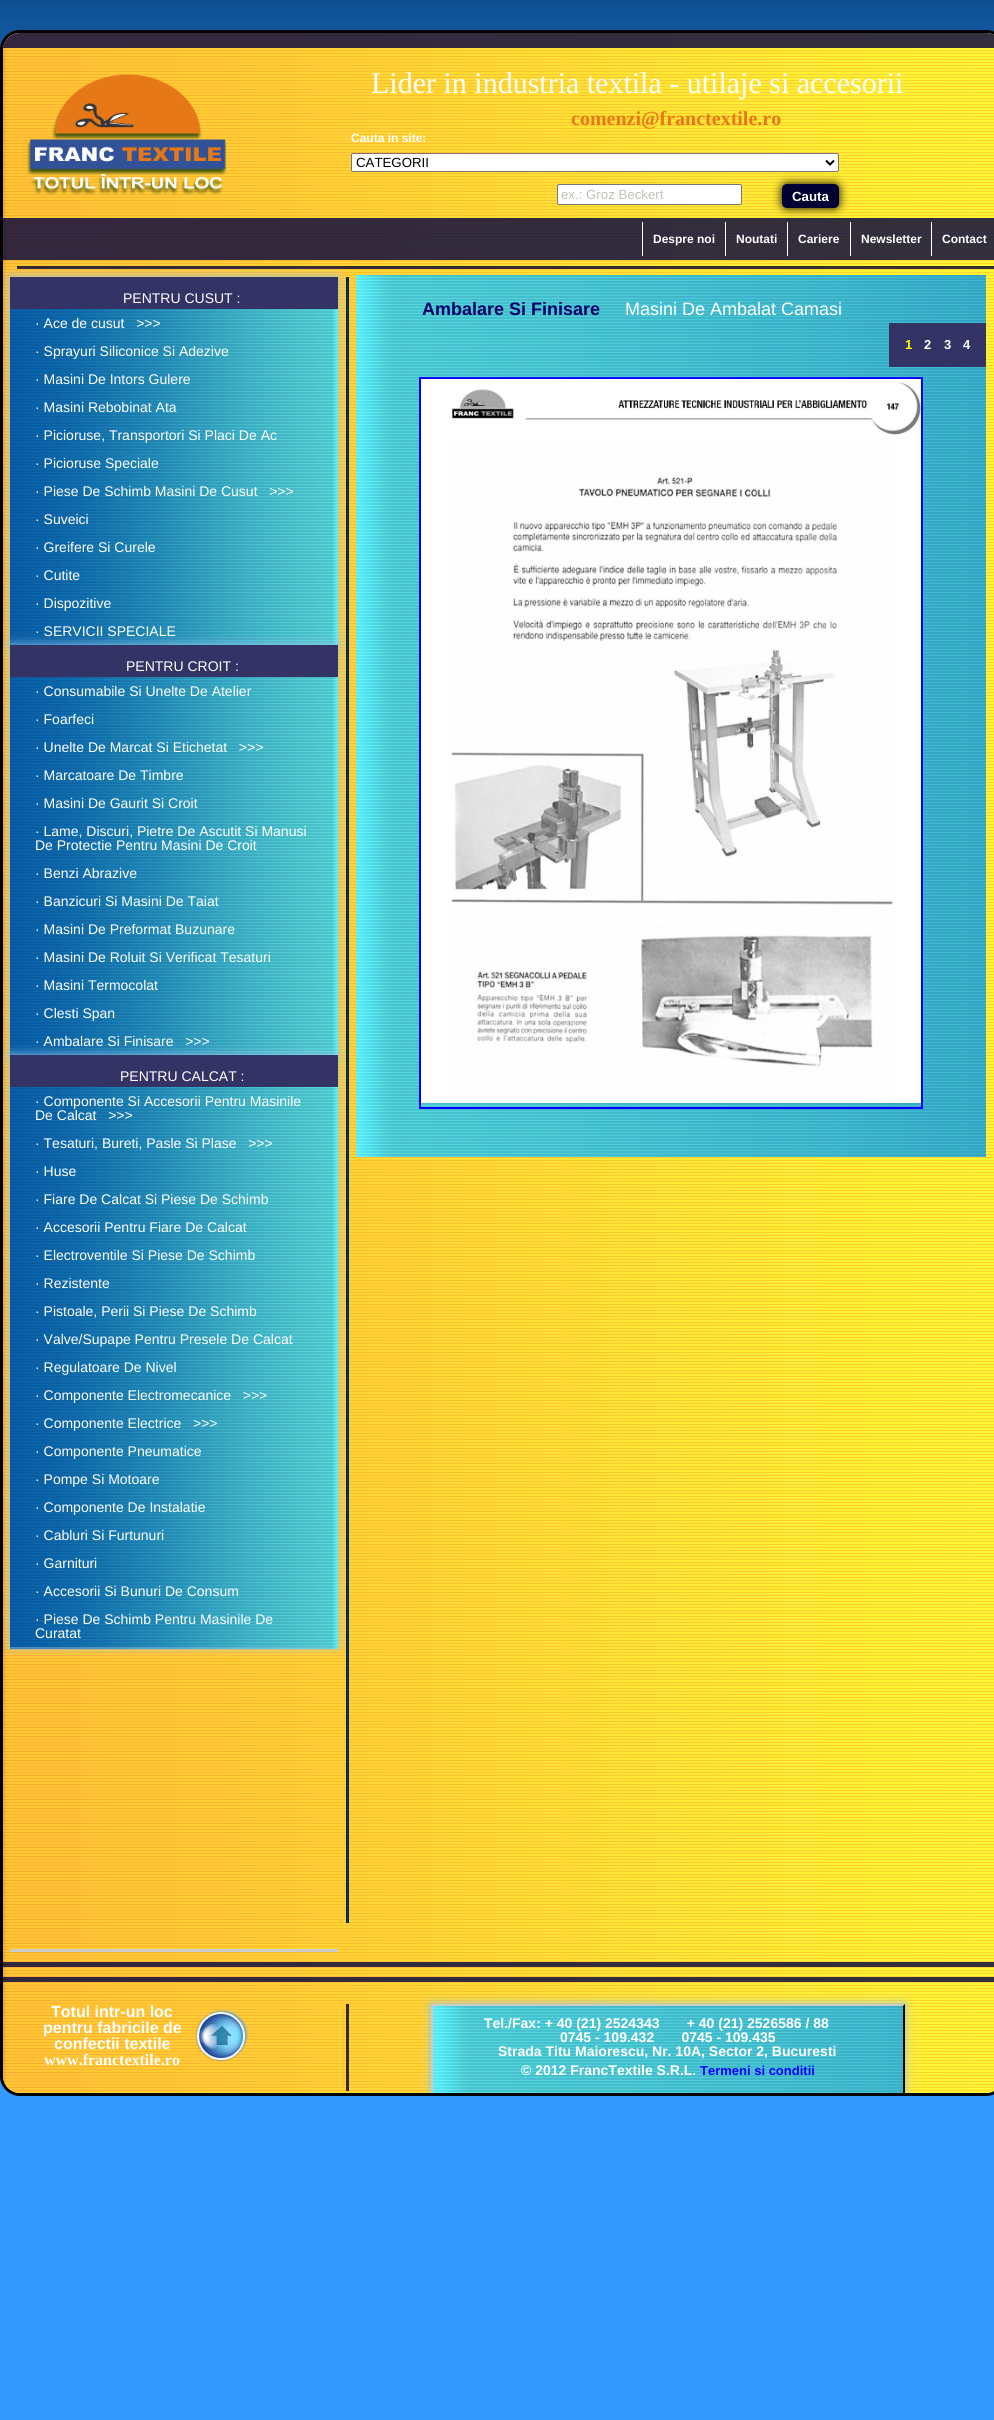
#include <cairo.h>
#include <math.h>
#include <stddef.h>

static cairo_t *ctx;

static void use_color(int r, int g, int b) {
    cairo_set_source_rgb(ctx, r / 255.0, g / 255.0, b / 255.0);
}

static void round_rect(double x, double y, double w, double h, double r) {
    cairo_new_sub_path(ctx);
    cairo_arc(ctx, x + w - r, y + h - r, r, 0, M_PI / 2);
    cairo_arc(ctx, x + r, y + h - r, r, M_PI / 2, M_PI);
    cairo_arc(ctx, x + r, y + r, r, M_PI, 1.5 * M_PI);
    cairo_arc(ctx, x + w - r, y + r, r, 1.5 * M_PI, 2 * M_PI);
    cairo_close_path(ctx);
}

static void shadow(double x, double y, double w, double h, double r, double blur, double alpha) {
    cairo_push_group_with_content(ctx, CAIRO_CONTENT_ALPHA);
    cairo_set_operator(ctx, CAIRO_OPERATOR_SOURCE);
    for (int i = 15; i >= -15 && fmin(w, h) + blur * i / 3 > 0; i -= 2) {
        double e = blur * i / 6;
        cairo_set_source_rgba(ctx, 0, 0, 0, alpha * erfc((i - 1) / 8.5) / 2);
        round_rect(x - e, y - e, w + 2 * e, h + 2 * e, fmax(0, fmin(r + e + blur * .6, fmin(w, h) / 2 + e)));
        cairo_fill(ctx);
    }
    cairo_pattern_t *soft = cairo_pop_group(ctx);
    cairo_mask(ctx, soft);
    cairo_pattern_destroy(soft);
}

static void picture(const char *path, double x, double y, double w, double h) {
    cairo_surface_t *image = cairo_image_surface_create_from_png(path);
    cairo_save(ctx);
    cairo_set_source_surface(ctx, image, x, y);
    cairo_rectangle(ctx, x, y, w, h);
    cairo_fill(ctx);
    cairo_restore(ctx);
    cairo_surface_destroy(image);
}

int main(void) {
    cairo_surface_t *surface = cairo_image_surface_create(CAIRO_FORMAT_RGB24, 994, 2420);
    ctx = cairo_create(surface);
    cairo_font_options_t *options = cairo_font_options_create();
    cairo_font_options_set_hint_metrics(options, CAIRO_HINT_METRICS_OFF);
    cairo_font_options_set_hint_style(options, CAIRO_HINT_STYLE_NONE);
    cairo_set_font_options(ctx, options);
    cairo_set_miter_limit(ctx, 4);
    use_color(51, 153, 255);
    cairo_paint(ctx);
    picture("img1.png", 0, 0, 994, 50);
    use_color(255, 255, 255);
    round_rect(1.5, 31.5, 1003, 2063, 18.5);
    cairo_fill_preserve(ctx);
    use_color(0, 0, 0);
    cairo_set_line_width(ctx, 3);
    cairo_stroke(ctx);
    picture("img2.png", 3, 33, 991, 2060);
    picture("img3.png", 3, 33, 991, 15);
    picture("img4.png", 27, 74, 200, 121);
    cairo_select_font_face(ctx, "Liberation Serif", CAIRO_FONT_SLANT_NORMAL, CAIRO_FONT_WEIGHT_NORMAL);
    cairo_set_font_size(ctx, 30);
    use_color(255, 255, 255);
    cairo_move_to(ctx, 371, 93);
    cairo_show_text(ctx, "Lider in industria textila - utilaje si accesorii");
    cairo_select_font_face(ctx, "Liberation Serif", CAIRO_FONT_SLANT_NORMAL, CAIRO_FONT_WEIGHT_BOLD);
    cairo_set_font_size(ctx, 20);
    use_color(230, 120, 23);
    cairo_move_to(ctx, 571, 125);
    cairo_show_text(ctx, "comenzi@franctextile.ro");
    cairo_select_font_face(ctx, "Liberation Sans", CAIRO_FONT_SLANT_NORMAL, CAIRO_FONT_WEIGHT_BOLD);
    cairo_set_font_size(ctx, 12);
    use_color(255, 255, 255);
    cairo_move_to(ctx, 351, 142);
    cairo_show_text(ctx, "Cauta in site:");
    round_rect(351.5, 153.5, 487, 18, 1.5);
    cairo_fill_preserve(ctx);
    use_color(118, 118, 118);
    cairo_set_line_width(ctx, 1);
    cairo_stroke(ctx);
    cairo_new_path(ctx);
    cairo_move_to(ctx, 826, 160.5);
    cairo_line_to(ctx, 830, 164.5);
    cairo_line_to(ctx, 834, 160.5);
    use_color(0, 0, 0);
    cairo_set_line_width(ctx, 2);
    cairo_stroke(ctx);
    cairo_select_font_face(ctx, "Liberation Sans", CAIRO_FONT_SLANT_NORMAL, CAIRO_FONT_WEIGHT_NORMAL);
    cairo_set_font_size(ctx, 13.25);
    cairo_move_to(ctx, 356, 167);
    cairo_show_text(ctx, "CATEGORII");
    use_color(255, 255, 255);
    round_rect(557.5, 184.5, 184, 20, 1.5);
    cairo_fill_preserve(ctx);
    use_color(118, 118, 118);
    cairo_set_line_width(ctx, 1);
    cairo_stroke(ctx);
    use_color(194, 193, 183);
    cairo_move_to(ctx, 561, 199);
    cairo_show_text(ctx, "ex.: Groz Beckert");
    use_color(0, 0, 0);
    shadow(782, 184, 57, 24, 5, 5, 1);
    use_color(0, 0, 51);
    round_rect(782, 184, 57, 24, 5);
    cairo_fill(ctx);
    cairo_select_font_face(ctx, "Liberation Sans", CAIRO_FONT_SLANT_NORMAL, CAIRO_FONT_WEIGHT_BOLD);
    use_color(255, 255, 255);
    cairo_move_to(ctx, 792, 201);
    cairo_show_text(ctx, "Cauta");
    picture("img5.png", 3, 218, 991, 42);
    cairo_rectangle(ctx, 642, 222, 1, 34);
    cairo_fill(ctx);
    cairo_set_font_size(ctx, 12);
    cairo_move_to(ctx, 653, 243);
    cairo_show_text(ctx, "Despre noi");
    cairo_rectangle(ctx, 725, 222, 1, 34);
    cairo_fill(ctx);
    cairo_move_to(ctx, 736, 243);
    cairo_show_text(ctx, "Noutati");
    cairo_rectangle(ctx, 787, 222, 1, 34);
    cairo_fill(ctx);
    cairo_move_to(ctx, 798, 243);
    cairo_show_text(ctx, "Cariere");
    cairo_rectangle(ctx, 850, 222, 1, 34);
    cairo_fill(ctx);
    cairo_move_to(ctx, 861, 243);
    cairo_show_text(ctx, "Newsletter");
    cairo_rectangle(ctx, 931, 222, 1, 34);
    cairo_fill(ctx);
    cairo_move_to(ctx, 942, 243);
    cairo_show_text(ctx, "Contact");
    cairo_set_source_rgba(ctx, 0, 0, 0.2, 0.8);
    cairo_rectangle(ctx, 17, 266, 977, 3);
    cairo_fill(ctx);
    picture("img6.png", 10, 309, 328, 1340);
    cairo_save(ctx);
    round_rect(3, 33, 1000, 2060, 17);
    cairo_clip(ctx);
    cairo_set_fill_rule(ctx, CAIRO_FILL_RULE_EVEN_ODD);
    cairo_new_path(ctx);
    cairo_move_to(ctx, 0, 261);
    cairo_line_to(ctx, 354, 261);
    cairo_line_to(ctx, 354, 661);
    cairo_line_to(ctx, 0, 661);
    cairo_close_path(ctx);
    cairo_move_to(ctx, 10, 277);
    cairo_line_to(ctx, 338, 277);
    cairo_line_to(ctx, 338, 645);
    cairo_line_to(ctx, 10, 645);
    cairo_close_path(ctx);
    cairo_clip(ctx);
    use_color(148, 197, 235);
    shadow(10, 277, 328, 368, 0, 5, 1);
    cairo_restore(ctx);
    use_color(51, 51, 102);
    cairo_rectangle(ctx, 10, 277, 328, 32);
    cairo_fill(ctx);
    cairo_select_font_face(ctx, "Liberation Sans", CAIRO_FONT_SLANT_NORMAL, CAIRO_FONT_WEIGHT_NORMAL);
    cairo_set_font_size(ctx, 14);
    use_color(255, 255, 255);
    cairo_move_to(ctx, 123, 303);
    cairo_show_text(ctx, "PENTRU CUSUT :");
    cairo_move_to(ctx, 35, 328);
    cairo_show_text(ctx, "· Ace de cusut   >>>");
    cairo_move_to(ctx, 35, 356);
    cairo_show_text(ctx, "· Sprayuri Siliconice Si Adezive");
    cairo_move_to(ctx, 35, 384);
    cairo_show_text(ctx, "· Masini De Intors Gulere");
    cairo_move_to(ctx, 35, 412);
    cairo_show_text(ctx, "· Masini Rebobinat Ata");
    cairo_move_to(ctx, 35, 440);
    cairo_show_text(ctx, "· Picioruse, Transportori Si Placi De Ac");
    cairo_move_to(ctx, 35, 468);
    cairo_show_text(ctx, "· Picioruse Speciale");
    cairo_move_to(ctx, 35, 496);
    cairo_show_text(ctx, "· Piese De Schimb Masini De Cusut   >>>");
    cairo_move_to(ctx, 35, 524);
    cairo_show_text(ctx, "· Suveici");
    cairo_move_to(ctx, 35, 552);
    cairo_show_text(ctx, "· Greifere Si Curele");
    cairo_move_to(ctx, 35, 580);
    cairo_show_text(ctx, "· Cutite");
    cairo_move_to(ctx, 35, 608);
    cairo_show_text(ctx, "· Dispozitive");
    cairo_save(ctx);
    round_rect(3, 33, 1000, 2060, 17);
    cairo_clip(ctx);
    cairo_set_fill_rule(ctx, CAIRO_FILL_RULE_EVEN_ODD);
    cairo_new_path(ctx);
    cairo_move_to(ctx, 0, 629);
    cairo_line_to(ctx, 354, 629);
    cairo_line_to(ctx, 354, 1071);
    cairo_line_to(ctx, 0, 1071);
    cairo_close_path(ctx);
    cairo_move_to(ctx, 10, 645);
    cairo_line_to(ctx, 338, 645);
    cairo_line_to(ctx, 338, 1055);
    cairo_line_to(ctx, 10, 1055);
    cairo_close_path(ctx);
    cairo_clip(ctx);
    use_color(148, 197, 235);
    shadow(10, 645, 328, 410, 0, 5, 1);
    cairo_restore(ctx);
    cairo_move_to(ctx, 35, 636);
    cairo_show_text(ctx, "· SERVICII SPECIALE");
    use_color(51, 51, 102);
    cairo_rectangle(ctx, 10, 645, 328, 32);
    cairo_fill(ctx);
    use_color(255, 255, 255);
    cairo_move_to(ctx, 126, 671);
    cairo_show_text(ctx, "PENTRU CROIT :");
    cairo_move_to(ctx, 35, 696);
    cairo_show_text(ctx, "· Consumabile Si Unelte De Atelier");
    cairo_move_to(ctx, 35, 724);
    cairo_show_text(ctx, "· Foarfeci");
    cairo_move_to(ctx, 35, 752);
    cairo_show_text(ctx, "· Unelte De Marcat Si Etichetat   >>>");
    cairo_move_to(ctx, 35, 780);
    cairo_show_text(ctx, "· Marcatoare De Timbre");
    cairo_move_to(ctx, 35, 808);
    cairo_show_text(ctx, "· Masini De Gaurit Si Croit");
    cairo_move_to(ctx, 35, 836);
    cairo_show_text(ctx, "· Lame, Discuri, Pietre De Ascutit Si Manusi");
    cairo_move_to(ctx, 35, 850);
    cairo_show_text(ctx, "De Protectie Pentru Masini De Croit");
    cairo_move_to(ctx, 35, 878);
    cairo_show_text(ctx, "· Benzi Abrazive");
    cairo_move_to(ctx, 35, 906);
    cairo_show_text(ctx, "· Banzicuri Si Masini De Taiat");
    cairo_move_to(ctx, 35, 934);
    cairo_show_text(ctx, "· Masini De Preformat Buzunare");
    cairo_move_to(ctx, 35, 962);
    cairo_show_text(ctx, "· Masini De Roluit Si Verificat Tesaturi");
    cairo_move_to(ctx, 35, 990);
    cairo_show_text(ctx, "· Masini Termocolat");
    cairo_move_to(ctx, 35, 1018);
    cairo_show_text(ctx, "· Clesti Span");
    cairo_save(ctx);
    round_rect(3, 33, 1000, 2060, 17);
    cairo_clip(ctx);
    cairo_set_fill_rule(ctx, CAIRO_FILL_RULE_EVEN_ODD);
    cairo_new_path(ctx);
    cairo_move_to(ctx, 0, 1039);
    cairo_line_to(ctx, 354, 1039);
    cairo_line_to(ctx, 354, 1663);
    cairo_line_to(ctx, 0, 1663);
    cairo_close_path(ctx);
    cairo_move_to(ctx, 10, 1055);
    cairo_line_to(ctx, 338, 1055);
    cairo_line_to(ctx, 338, 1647);
    cairo_line_to(ctx, 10, 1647);
    cairo_close_path(ctx);
    cairo_clip(ctx);
    use_color(148, 197, 235);
    shadow(10, 1055, 328, 592, 0, 5, 1);
    cairo_restore(ctx);
    cairo_move_to(ctx, 35, 1046);
    cairo_show_text(ctx, "· Ambalare Si Finisare   >>>");
    use_color(51, 51, 102);
    cairo_rectangle(ctx, 10, 1055, 328, 32);
    cairo_fill(ctx);
    use_color(255, 255, 255);
    cairo_move_to(ctx, 120, 1081);
    cairo_show_text(ctx, "PENTRU CALCAT :");
    cairo_move_to(ctx, 35, 1106);
    cairo_show_text(ctx, "· Componente Si Accesorii Pentru Masinile");
    cairo_move_to(ctx, 35, 1120);
    cairo_show_text(ctx, "De Calcat   >>>");
    cairo_move_to(ctx, 35, 1148);
    cairo_show_text(ctx, "· Tesaturi, Bureti, Pasle Si Plase   >>>");
    cairo_move_to(ctx, 35, 1176);
    cairo_show_text(ctx, "· Huse");
    cairo_move_to(ctx, 35, 1204);
    cairo_show_text(ctx, "· Fiare De Calcat Si Piese De Schimb");
    cairo_move_to(ctx, 35, 1232);
    cairo_show_text(ctx, "· Accesorii Pentru Fiare De Calcat");
    cairo_move_to(ctx, 35, 1260);
    cairo_show_text(ctx, "· Electroventile Si Piese De Schimb");
    cairo_move_to(ctx, 35, 1288);
    cairo_show_text(ctx, "· Rezistente");
    cairo_move_to(ctx, 35, 1316);
    cairo_show_text(ctx, "· Pistoale, Perii Si Piese De Schimb");
    cairo_move_to(ctx, 35, 1344);
    cairo_show_text(ctx, "· Valve/Supape Pentru Presele De Calcat");
    cairo_move_to(ctx, 35, 1372);
    cairo_show_text(ctx, "· Regulatoare De Nivel");
    cairo_move_to(ctx, 35, 1400);
    cairo_show_text(ctx, "· Componente Electromecanice   >>>");
    cairo_move_to(ctx, 35, 1428);
    cairo_show_text(ctx, "· Componente Electrice   >>>");
    cairo_move_to(ctx, 35, 1456);
    cairo_show_text(ctx, "· Componente Pneumatice");
    cairo_move_to(ctx, 35, 1484);
    cairo_show_text(ctx, "· Pompe Si Motoare");
    cairo_move_to(ctx, 35, 1512);
    cairo_show_text(ctx, "· Componente De Instalatie");
    cairo_move_to(ctx, 35, 1540);
    cairo_show_text(ctx, "· Cabluri Si Furtunuri");
    cairo_move_to(ctx, 35, 1568);
    cairo_show_text(ctx, "· Garnituri");
    cairo_move_to(ctx, 35, 1596);
    cairo_show_text(ctx, "· Accesorii Si Bunuri De Consum");
    cairo_move_to(ctx, 35, 1624);
    cairo_show_text(ctx, "· Piese De Schimb Pentru Masinile De");
    cairo_move_to(ctx, 35, 1638);
    cairo_show_text(ctx, "Curatat");
    picture("img7.png", 346, 277, 3, 1646);
    use_color(204, 204, 204);
    cairo_rectangle(ctx, 10, 1949, 328, 3);
    cairo_fill(ctx);
    picture("img8.png", 356, 275, 630, 882);
    cairo_select_font_face(ctx, "Liberation Sans", CAIRO_FONT_SLANT_NORMAL, CAIRO_FONT_WEIGHT_BOLD);
    cairo_set_font_size(ctx, 18);
    use_color(0, 0, 102);
    cairo_move_to(ctx, 422, 315);
    cairo_show_text(ctx, "Ambalare Si Finisare");
    cairo_select_font_face(ctx, "Liberation Sans", CAIRO_FONT_SLANT_NORMAL, CAIRO_FONT_WEIGHT_NORMAL);
    use_color(255, 255, 255);
    cairo_move_to(ctx, 625, 315);
    cairo_show_text(ctx, "Masini De Ambalat Camasi");
    use_color(51, 51, 102);
    cairo_rectangle(ctx, 889, 323, 97, 44);
    cairo_fill(ctx);
    cairo_select_font_face(ctx, "Liberation Sans", CAIRO_FONT_SLANT_NORMAL, CAIRO_FONT_WEIGHT_BOLD);
    cairo_set_font_size(ctx, 13);
    use_color(255, 255, 0);
    cairo_move_to(ctx, 905, 349);
    cairo_show_text(ctx, "1");
    use_color(255, 255, 255);
    cairo_move_to(ctx, 924, 349);
    cairo_show_text(ctx, "2");
    cairo_move_to(ctx, 944, 349);
    cairo_show_text(ctx, "3");
    cairo_move_to(ctx, 963, 349);
    cairo_show_text(ctx, "4");
    cairo_rectangle(ctx, 420, 378, 502, 730);
    use_color(0, 0, 255);
    cairo_set_line_width(ctx, 2);
    cairo_stroke(ctx);
    picture("img9.png", 421, 379, 500, 724);
    picture("img10.png", 3, 1962, 991, 5);
    picture("img10.png", 3, 1977, 991, 5);
    cairo_set_font_size(ctx, 16);
    use_color(255, 255, 255);
    cairo_move_to(ctx, 51, 2017);
    cairo_show_text(ctx, "Totul intr-un loc");
    cairo_move_to(ctx, 43, 2033);
    cairo_show_text(ctx, "pentru fabricile de");
    cairo_move_to(ctx, 54, 2049);
    cairo_show_text(ctx, "confectii textile");
    cairo_select_font_face(ctx, "Liberation Serif", CAIRO_FONT_SLANT_NORMAL, CAIRO_FONT_WEIGHT_BOLD);
    cairo_move_to(ctx, 44, 2065);
    cairo_show_text(ctx, "www.franctextile.ro");
    picture("img11.png", 195, 2009, 54, 53);
    cairo_set_source_rgba(ctx, 0, 0, 0.2, 0.8);
    cairo_rectangle(ctx, 346, 2004, 3, 87);
    cairo_fill(ctx);
    cairo_save(ctx);
    round_rect(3, 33, 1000, 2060, 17);
    cairo_clip(ctx);
    use_color(148, 197, 235);
    shadow(431, 2004, 474, 112, 0, 5, 1);
    cairo_restore(ctx);
    picture("img12.png", 433, 2004, 472, 89);
    use_color(204, 204, 204);
    cairo_new_path(ctx);
    cairo_move_to(ctx, 431, 2004);
    cairo_line_to(ctx, 905, 2004);
    cairo_line_to(ctx, 903, 2006);
    cairo_line_to(ctx, 433, 2006);
    cairo_close_path(ctx);
    cairo_fill(ctx);
    use_color(0, 0, 0);
    cairo_new_path(ctx);
    cairo_move_to(ctx, 905, 2004);
    cairo_line_to(ctx, 905, 2093);
    cairo_line_to(ctx, 903, 2093);
    cairo_line_to(ctx, 903, 2006);
    cairo_close_path(ctx);
    cairo_fill(ctx);
    use_color(204, 204, 204);
    cairo_new_path(ctx);
    cairo_move_to(ctx, 433, 2093);
    cairo_line_to(ctx, 431, 2093);
    cairo_line_to(ctx, 431, 2004);
    cairo_line_to(ctx, 433, 2006);
    cairo_close_path(ctx);
    cairo_fill(ctx);
    cairo_select_font_face(ctx, "Liberation Sans", CAIRO_FONT_SLANT_NORMAL, CAIRO_FONT_WEIGHT_BOLD);
    cairo_set_font_size(ctx, 14);
    use_color(255, 255, 255);
    cairo_move_to(ctx, 484, 2028);
    cairo_show_text(ctx, "Tel./Fax: + 40 (21) 2524343       + 40 (21) 2526586 / 88");
    cairo_move_to(ctx, 560, 2042);
    cairo_show_text(ctx, "0745 - 109.432       0745 - 109.435");
    cairo_move_to(ctx, 498, 2056);
    cairo_show_text(ctx, "Strada Titu Maiorescu, Nr. 10A, Sector 2, Bucuresti");
    cairo_move_to(ctx, 521, 2075);
    cairo_show_text(ctx, "© 2012 FrancTextile S.R.L.");
    cairo_set_font_size(ctx, 13);
    use_color(0, 0, 255);
    cairo_move_to(ctx, 700, 2075);
    cairo_show_text(ctx, "Termeni si conditii");
    cairo_surface_write_to_png(surface, "result.png");
    cairo_font_options_destroy(options);
    cairo_destroy(ctx);
    cairo_surface_destroy(surface);
    return 0;
}
